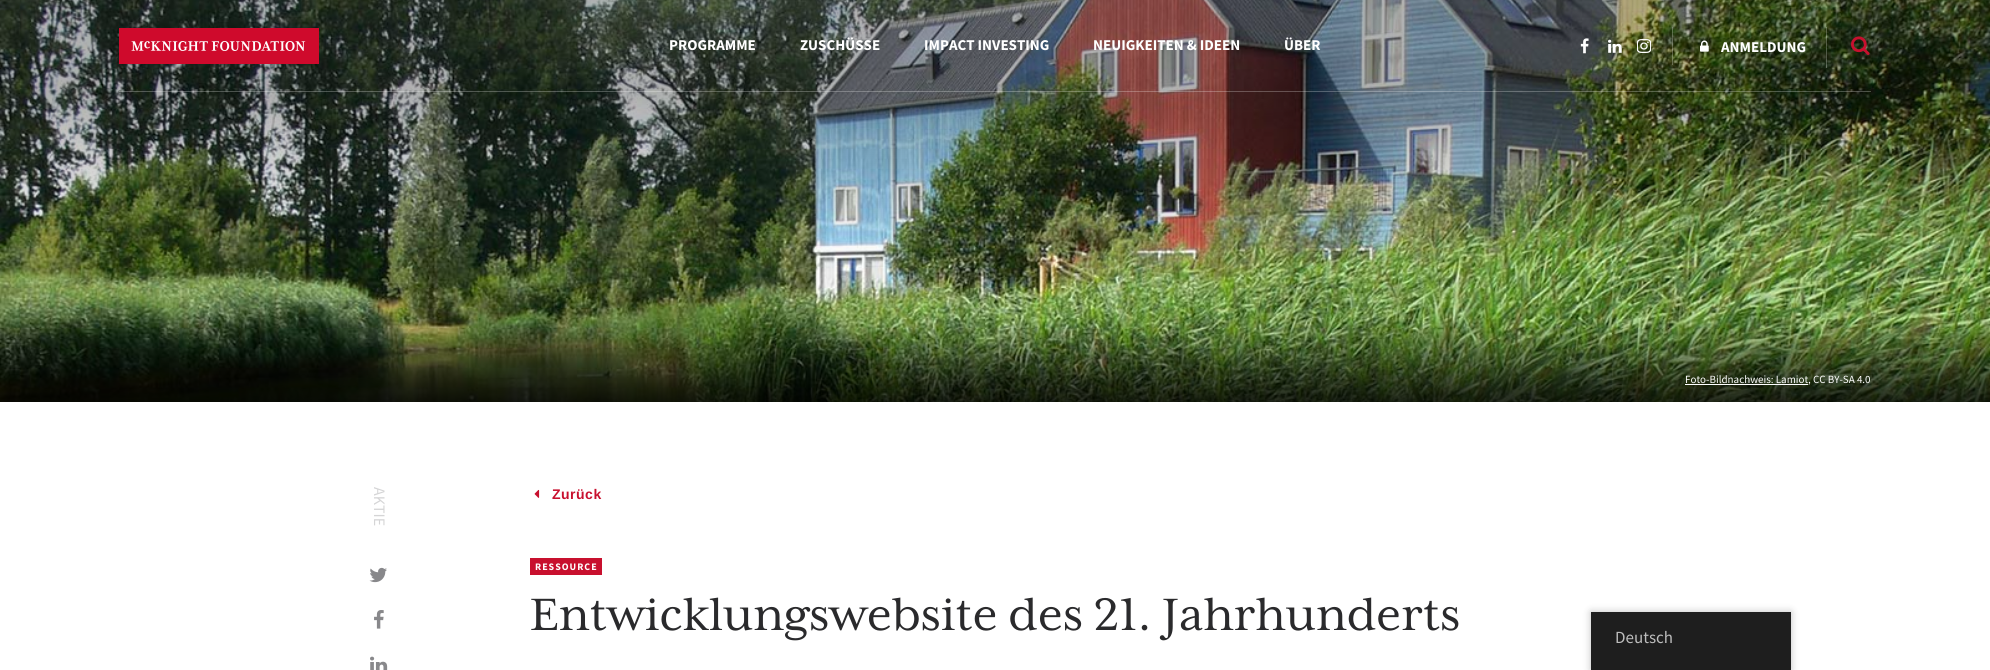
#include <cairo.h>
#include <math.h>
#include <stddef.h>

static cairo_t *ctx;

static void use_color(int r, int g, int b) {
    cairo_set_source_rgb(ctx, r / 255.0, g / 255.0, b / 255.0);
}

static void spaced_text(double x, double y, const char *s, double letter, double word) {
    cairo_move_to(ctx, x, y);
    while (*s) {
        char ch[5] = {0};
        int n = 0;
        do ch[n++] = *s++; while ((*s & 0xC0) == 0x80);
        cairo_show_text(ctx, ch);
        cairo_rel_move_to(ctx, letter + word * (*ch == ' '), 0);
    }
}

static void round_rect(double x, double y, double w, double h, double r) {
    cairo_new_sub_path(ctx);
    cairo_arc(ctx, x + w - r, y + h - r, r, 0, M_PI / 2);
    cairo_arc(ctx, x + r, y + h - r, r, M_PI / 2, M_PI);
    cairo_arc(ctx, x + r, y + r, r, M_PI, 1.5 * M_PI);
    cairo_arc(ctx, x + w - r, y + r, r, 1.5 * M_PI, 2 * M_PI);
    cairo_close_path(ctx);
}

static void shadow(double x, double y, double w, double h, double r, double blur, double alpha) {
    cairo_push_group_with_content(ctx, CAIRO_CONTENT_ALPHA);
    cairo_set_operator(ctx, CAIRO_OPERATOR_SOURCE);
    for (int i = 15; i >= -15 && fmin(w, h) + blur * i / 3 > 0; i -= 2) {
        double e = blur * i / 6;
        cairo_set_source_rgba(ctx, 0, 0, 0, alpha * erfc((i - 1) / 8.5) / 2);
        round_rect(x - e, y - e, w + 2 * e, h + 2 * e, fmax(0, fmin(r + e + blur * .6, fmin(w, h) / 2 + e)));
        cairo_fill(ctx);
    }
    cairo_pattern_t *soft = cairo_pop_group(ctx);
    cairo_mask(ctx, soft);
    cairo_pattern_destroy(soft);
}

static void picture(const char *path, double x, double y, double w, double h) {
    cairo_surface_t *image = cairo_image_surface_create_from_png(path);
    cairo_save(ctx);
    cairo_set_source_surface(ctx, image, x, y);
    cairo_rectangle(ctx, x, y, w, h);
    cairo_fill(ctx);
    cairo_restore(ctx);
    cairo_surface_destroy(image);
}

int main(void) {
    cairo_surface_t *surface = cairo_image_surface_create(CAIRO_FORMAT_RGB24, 1990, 670);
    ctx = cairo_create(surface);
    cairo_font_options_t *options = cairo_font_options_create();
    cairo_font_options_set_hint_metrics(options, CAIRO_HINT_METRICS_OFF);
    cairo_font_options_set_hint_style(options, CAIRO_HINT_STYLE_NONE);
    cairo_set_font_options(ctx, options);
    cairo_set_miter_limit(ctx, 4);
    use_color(255, 255, 255);
    cairo_paint(ctx);
    picture("img7.png", 0, 0, 1990, 402);
    cairo_set_source_rgba(ctx, 1, 1, 1, 0.25);
    cairo_rectangle(ctx, 119, 91, 1752, 1);
    cairo_fill(ctx);
    picture("img1.png", 119, 28, 200, 36);
    cairo_select_font_face(ctx, "Source Sans Pro", CAIRO_FONT_SLANT_NORMAL, CAIRO_FONT_WEIGHT_BOLD);
    cairo_set_font_size(ctx, 15);
    use_color(255, 255, 255);
    cairo_move_to(ctx, 669, 50);
    cairo_show_text(ctx, "PROGRAMME");
    cairo_move_to(ctx, 800, 50);
    cairo_show_text(ctx, "ZUSCHÜSSE");
    cairo_move_to(ctx, 924, 50);
    cairo_show_text(ctx, "IMPACT INVESTING");
    cairo_move_to(ctx, 1093, 50);
    cairo_show_text(ctx, "NEUIGKEITEN & IDEEN");
    cairo_move_to(ctx, 1284, 50);
    cairo_show_text(ctx, "ÜBER");
    cairo_set_source_rgba(ctx, 1, 1, 1, 0.25);
    cairo_rectangle(ctx, 1672, 27, 1, 38);
    cairo_fill(ctx);
    picture("img2.png", 1580, 38, 9, 16);
    picture("img3.png", 1608, 39, 14, 14);
    picture("img4.png", 1637, 39, 14, 14);
    cairo_rectangle(ctx, 1826, 27, 1, 41);
    cairo_fill(ctx);
    picture("img5.png", 1700, 40, 9, 12);
    use_color(255, 255, 255);
    cairo_move_to(ctx, 1721, 52);
    cairo_show_text(ctx, "ANMELDUNG");
    picture("img6.png", 1851, 36, 19, 19);
    cairo_select_font_face(ctx, "Source Sans Pro", CAIRO_FONT_SLANT_NORMAL, CAIRO_FONT_WEIGHT_NORMAL);
    cairo_set_font_size(ctx, 11);
    cairo_move_to(ctx, 1685, 383);
    cairo_show_text(ctx, "Foto-Bildnachweis: Lamiot");
    cairo_rectangle(ctx, 1685, 384, 123, 1);
    cairo_fill(ctx);
    cairo_move_to(ctx, 1808, 383);
    cairo_show_text(ctx, ", CC BY-SA 4.0");
    cairo_set_font_size(ctx, 16);
    use_color(213, 213, 214);
    cairo_save(ctx);
    cairo_translate(ctx, 374, 487);
    cairo_rotate(ctx, 90 * M_PI / 180);
    cairo_move_to(ctx, 0, 0);
    cairo_show_text(ctx, "AKTIE");
    cairo_restore(ctx);
    picture("img8.png", 369, 567, 18, 16);
    picture("img9.png", 374, 610, 10, 19);
    picture("img10.png", 370, 656, 18, 14);
    picture("img11.png", 534, 489, 6, 9);
    cairo_select_font_face(ctx, "Liberation Sans", CAIRO_FONT_SLANT_NORMAL, CAIRO_FONT_WEIGHT_BOLD);
    cairo_set_font_size(ctx, 14);
    use_color(200, 16, 46);
    spaced_text(552, 499, "Zurück", 0.5, 0);
    cairo_rectangle(ctx, 530, 558, 72, 17);
    cairo_fill(ctx);
    cairo_select_font_face(ctx, "Source Sans Pro", CAIRO_FONT_SLANT_NORMAL, CAIRO_FONT_WEIGHT_BOLD);
    cairo_set_font_size(ctx, 10);
    use_color(255, 255, 255);
    spaced_text(535, 570, "RESSOURCE", 1, 0);
    cairo_select_font_face(ctx, "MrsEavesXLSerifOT", CAIRO_FONT_SLANT_NORMAL, CAIRO_FONT_WEIGHT_NORMAL);
    cairo_set_font_size(ctx, 52);
    use_color(42, 42, 44);
    cairo_move_to(ctx, 530, 630);
    cairo_show_text(ctx, "Entwicklungswebsite des 21. Jahrhunderts");
    use_color(0, 0, 0);
    shadow(1591, 612, 200, 58, 0, 4, 0.25);
    use_color(30, 30, 30);
    cairo_rectangle(ctx, 1591, 612, 200, 58);
    cairo_fill(ctx);
    cairo_select_font_face(ctx, "Source Sans Pro", CAIRO_FONT_SLANT_NORMAL, CAIRO_FONT_WEIGHT_NORMAL);
    cairo_set_font_size(ctx, 17);
    use_color(189, 189, 189);
    cairo_move_to(ctx, 1615, 643);
    cairo_show_text(ctx, "Deutsch");
    cairo_surface_write_to_png(surface, "result.png");
    cairo_font_options_destroy(options);
    cairo_destroy(ctx);
    cairo_surface_destroy(surface);
    return 0;
}
